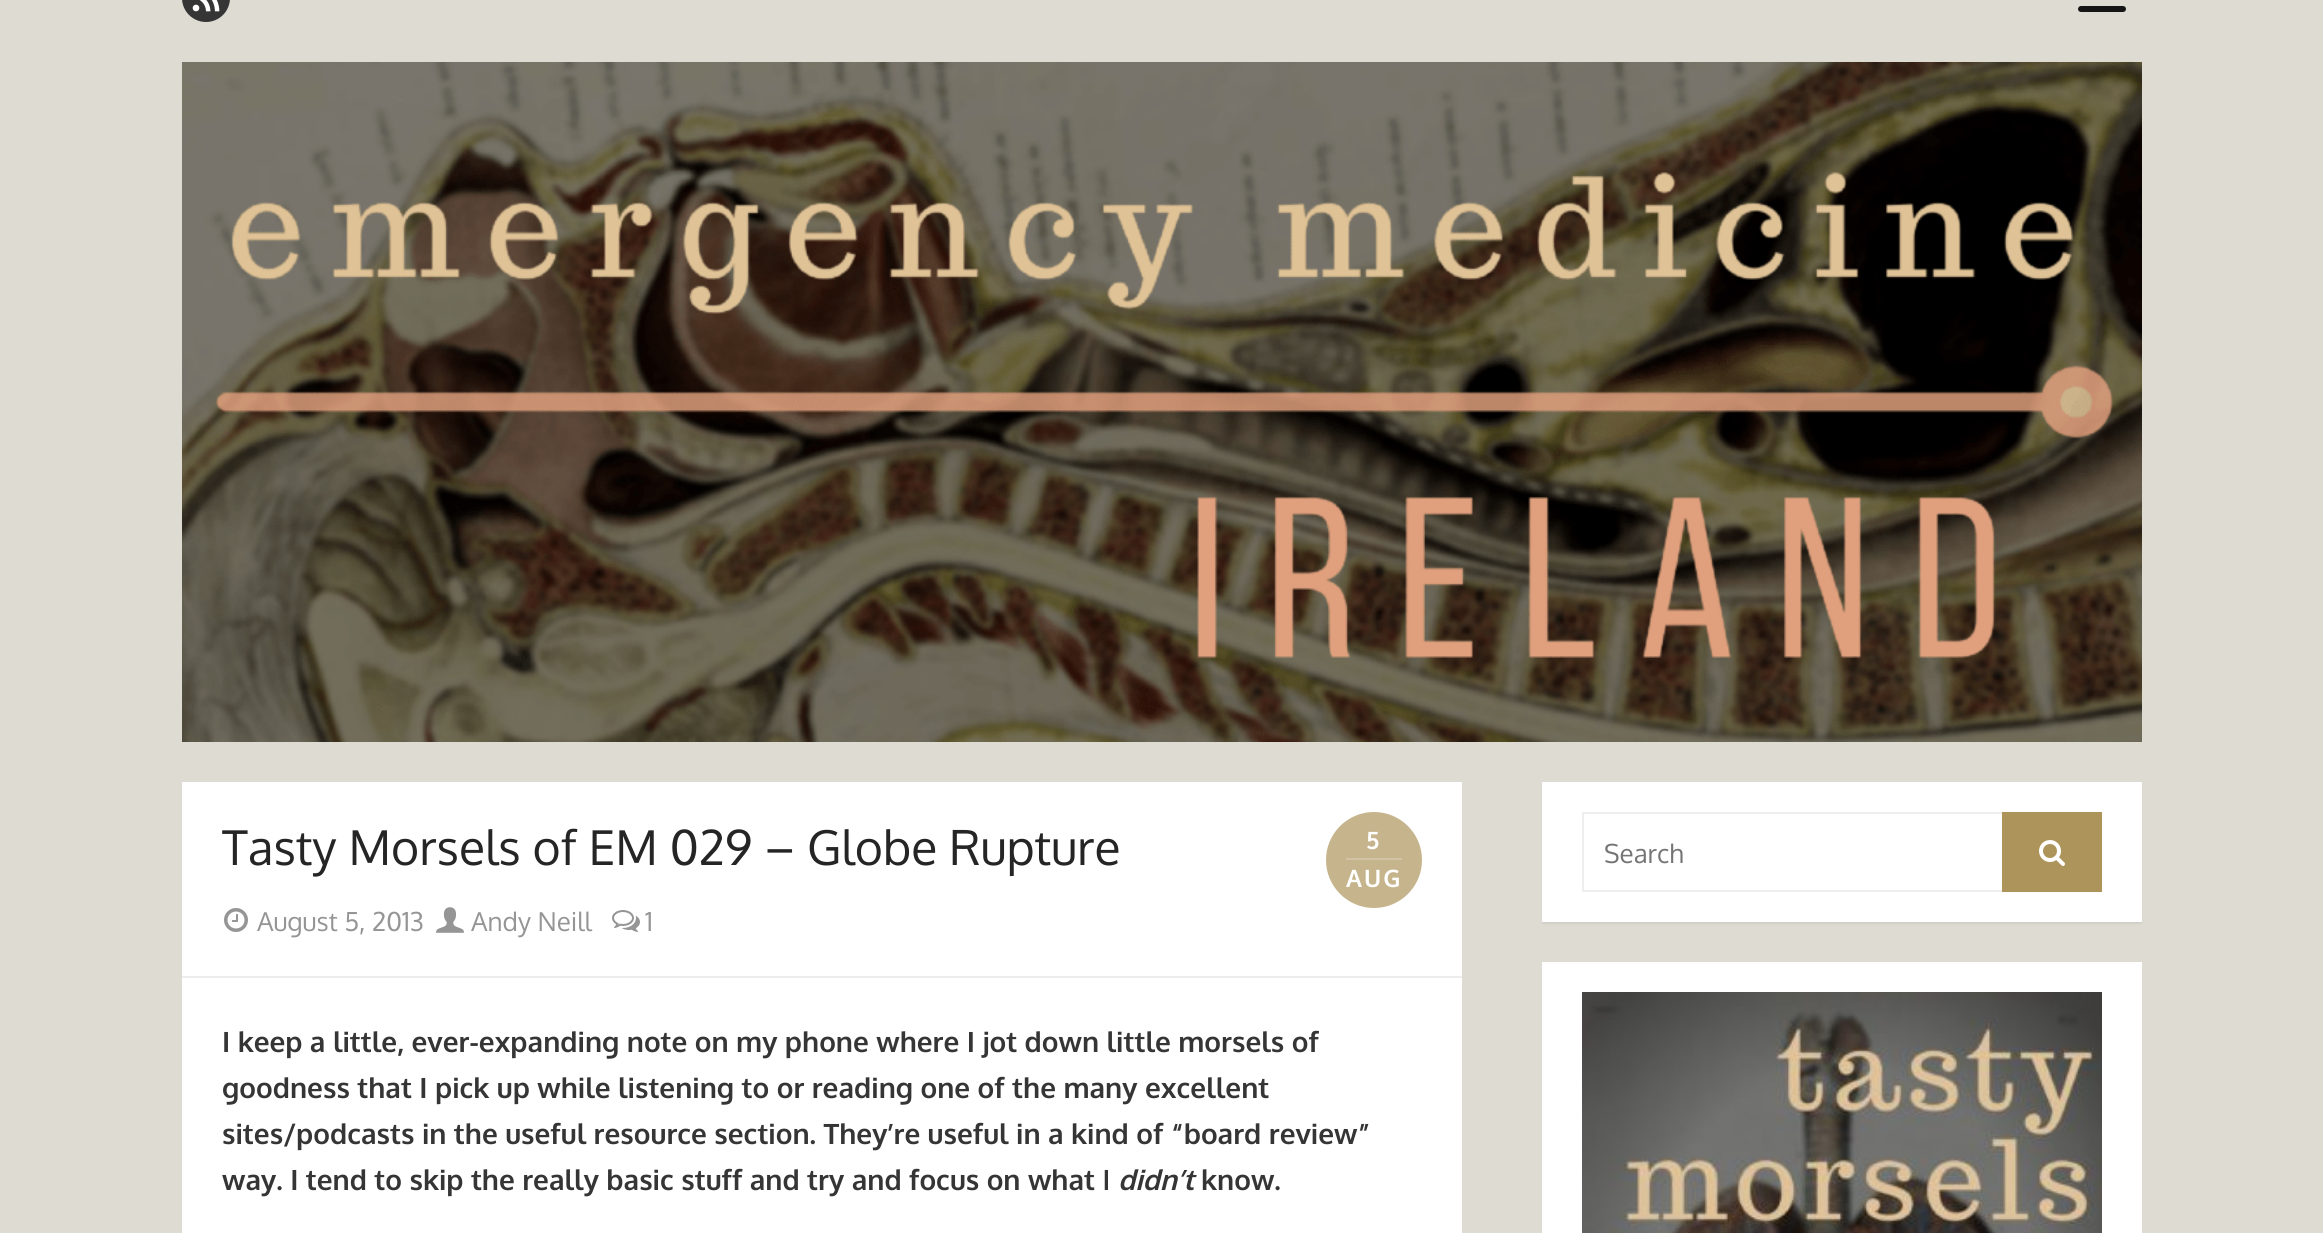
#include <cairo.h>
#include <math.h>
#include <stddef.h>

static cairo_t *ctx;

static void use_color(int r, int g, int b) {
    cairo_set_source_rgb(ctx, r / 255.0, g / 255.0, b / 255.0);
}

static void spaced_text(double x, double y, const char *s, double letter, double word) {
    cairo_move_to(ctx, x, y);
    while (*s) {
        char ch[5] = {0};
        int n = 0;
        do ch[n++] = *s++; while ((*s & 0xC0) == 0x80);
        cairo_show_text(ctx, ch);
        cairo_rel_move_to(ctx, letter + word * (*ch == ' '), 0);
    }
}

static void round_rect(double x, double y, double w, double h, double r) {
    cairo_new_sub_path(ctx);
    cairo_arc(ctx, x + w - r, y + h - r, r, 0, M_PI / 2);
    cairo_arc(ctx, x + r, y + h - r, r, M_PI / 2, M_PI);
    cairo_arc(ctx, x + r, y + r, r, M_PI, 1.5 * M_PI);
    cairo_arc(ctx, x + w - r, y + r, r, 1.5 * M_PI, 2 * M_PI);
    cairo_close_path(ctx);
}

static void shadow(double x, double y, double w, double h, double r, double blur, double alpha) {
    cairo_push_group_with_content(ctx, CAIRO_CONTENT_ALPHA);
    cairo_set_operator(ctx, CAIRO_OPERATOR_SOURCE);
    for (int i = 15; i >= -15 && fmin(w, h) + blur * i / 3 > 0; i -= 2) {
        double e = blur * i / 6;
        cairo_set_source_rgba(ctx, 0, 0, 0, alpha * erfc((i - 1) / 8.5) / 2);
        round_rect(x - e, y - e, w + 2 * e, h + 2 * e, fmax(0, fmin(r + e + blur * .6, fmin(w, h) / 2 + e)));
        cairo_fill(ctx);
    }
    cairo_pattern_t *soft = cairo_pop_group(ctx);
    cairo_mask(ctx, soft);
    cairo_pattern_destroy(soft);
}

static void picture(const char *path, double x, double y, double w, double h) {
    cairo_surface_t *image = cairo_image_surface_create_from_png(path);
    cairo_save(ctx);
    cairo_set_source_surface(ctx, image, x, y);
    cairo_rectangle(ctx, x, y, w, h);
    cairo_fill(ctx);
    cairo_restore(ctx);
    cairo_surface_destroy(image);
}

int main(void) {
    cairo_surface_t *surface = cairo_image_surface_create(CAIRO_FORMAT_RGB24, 2323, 1233);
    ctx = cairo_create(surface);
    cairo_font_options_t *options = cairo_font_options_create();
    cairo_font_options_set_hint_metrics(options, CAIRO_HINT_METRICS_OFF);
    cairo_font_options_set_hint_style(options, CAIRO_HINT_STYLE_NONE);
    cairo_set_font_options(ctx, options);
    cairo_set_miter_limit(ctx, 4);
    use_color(221, 219, 210);
    cairo_paint(ctx);
    use_color(53, 53, 53);
    round_rect(182, -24, 48, 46, 24);
    cairo_fill(ctx);
    picture("img1.png", 192, 0, 28, 12);
    use_color(21, 21, 21);
    round_rect(2078, 6, 48, 6, 3);
    cairo_fill(ctx);
    picture("img2.png", 182, 62, 1960, 680);
    use_color(255, 255, 255);
    cairo_rectangle(ctx, 182, 782, 1280, 451);
    cairo_fill(ctx);
    use_color(237, 237, 237);
    cairo_rectangle(ctx, 182, 976, 1280, 2);
    cairo_fill(ctx);
    cairo_select_font_face(ctx, "Oxygen", CAIRO_FONT_SLANT_NORMAL, CAIRO_FONT_WEIGHT_NORMAL);
    cairo_set_font_size(ctx, 48);
    use_color(37, 37, 37);
    cairo_move_to(ctx, 222, 865);
    cairo_show_text(ctx, "Tasty Morsels of EM 029 – Globe Rupture");
    use_color(198, 180, 140);
    cairo_new_path(ctx);
    cairo_arc(ctx, 1374, 860, 48, 0, 2 * M_PI);
    cairo_fill(ctx);
    cairo_select_font_face(ctx, "Oxygen", CAIRO_FONT_SLANT_NORMAL, CAIRO_FONT_WEIGHT_BOLD);
    cairo_set_font_size(ctx, 24);
    use_color(255, 255, 255);
    spaced_text(1366, 849, "5", 2, 0);
    use_color(209, 195, 163);
    cairo_rectangle(ctx, 1346, 858, 56, 2);
    cairo_fill(ctx);
    use_color(255, 255, 255);
    spaced_text(1346, 887, "AUG", 2, 0);
    picture("img3.png", 224, 908, 24, 24);
    cairo_select_font_face(ctx, "Oxygen", CAIRO_FONT_SLANT_NORMAL, CAIRO_FONT_WEIGHT_NORMAL);
    cairo_set_font_size(ctx, 26);
    use_color(149, 149, 149);
    cairo_move_to(ctx, 257, 931);
    cairo_show_text(ctx, "August 5, 2013");
    picture("img4.png", 436, 907, 28, 26);
    cairo_move_to(ctx, 471, 931);
    cairo_show_text(ctx, "Andy Neill");
    picture("img5.png", 612, 910, 28, 22);
    cairo_move_to(ctx, 645, 931);
    cairo_show_text(ctx, "1");
    cairo_select_font_face(ctx, "Oxygen", CAIRO_FONT_SLANT_NORMAL, CAIRO_FONT_WEIGHT_BOLD);
    cairo_set_font_size(ctx, 28);
    use_color(53, 53, 53);
    cairo_move_to(ctx, 222, 1052);
    cairo_show_text(ctx, "I keep a little, ever-expanding note on my phone where I jot down little morsels of");
    cairo_move_to(ctx, 222, 1098);
    cairo_show_text(ctx, "goodness that I pick up while listening to or reading one of the many excellent");
    cairo_move_to(ctx, 222, 1144);
    cairo_show_text(ctx, "sites/podcasts in the useful resource section. They’re useful in a kind of “board review”");
    cairo_move_to(ctx, 222, 1190);
    cairo_show_text(ctx, "way. I tend to skip the really basic stuff and try and focus on what I");
    cairo_select_font_face(ctx, "Oxygen", CAIRO_FONT_SLANT_ITALIC, CAIRO_FONT_WEIGHT_BOLD);
    cairo_move_to(ctx, 1118, 1190);
    cairo_show_text(ctx, "didn’t");
    cairo_select_font_face(ctx, "Oxygen", CAIRO_FONT_SLANT_NORMAL, CAIRO_FONT_WEIGHT_BOLD);
    cairo_move_to(ctx, 1201, 1190);
    cairo_show_text(ctx, "know.");
    use_color(0, 0, 0);
    shadow(1542, 784, 600, 140, 0, 1, 0.06);
    use_color(255, 255, 255);
    cairo_rectangle(ctx, 1542, 782, 600, 140);
    cairo_fill(ctx);
    cairo_rectangle(ctx, 1583, 813, 518, 78);
    use_color(238, 238, 238);
    cairo_stroke(ctx);
    cairo_select_font_face(ctx, "Oxygen", CAIRO_FONT_SLANT_NORMAL, CAIRO_FONT_WEIGHT_NORMAL);
    cairo_set_font_size(ctx, 26);
    use_color(117, 117, 117);
    cairo_move_to(ctx, 1604, 863);
    cairo_show_text(ctx, "Search");
    use_color(173, 148, 90);
    cairo_rectangle(ctx, 2002, 812, 100, 80);
    cairo_fill(ctx);
    picture("img6.png", 2039, 840, 26, 26);
    use_color(255, 255, 255);
    cairo_rectangle(ctx, 1542, 962, 600, 271);
    cairo_fill(ctx);
    picture("img7.png", 1582, 992, 520, 241);
    cairo_surface_write_to_png(surface, "result.png");
    cairo_font_options_destroy(options);
    cairo_destroy(ctx);
    cairo_surface_destroy(surface);
    return 0;
}
